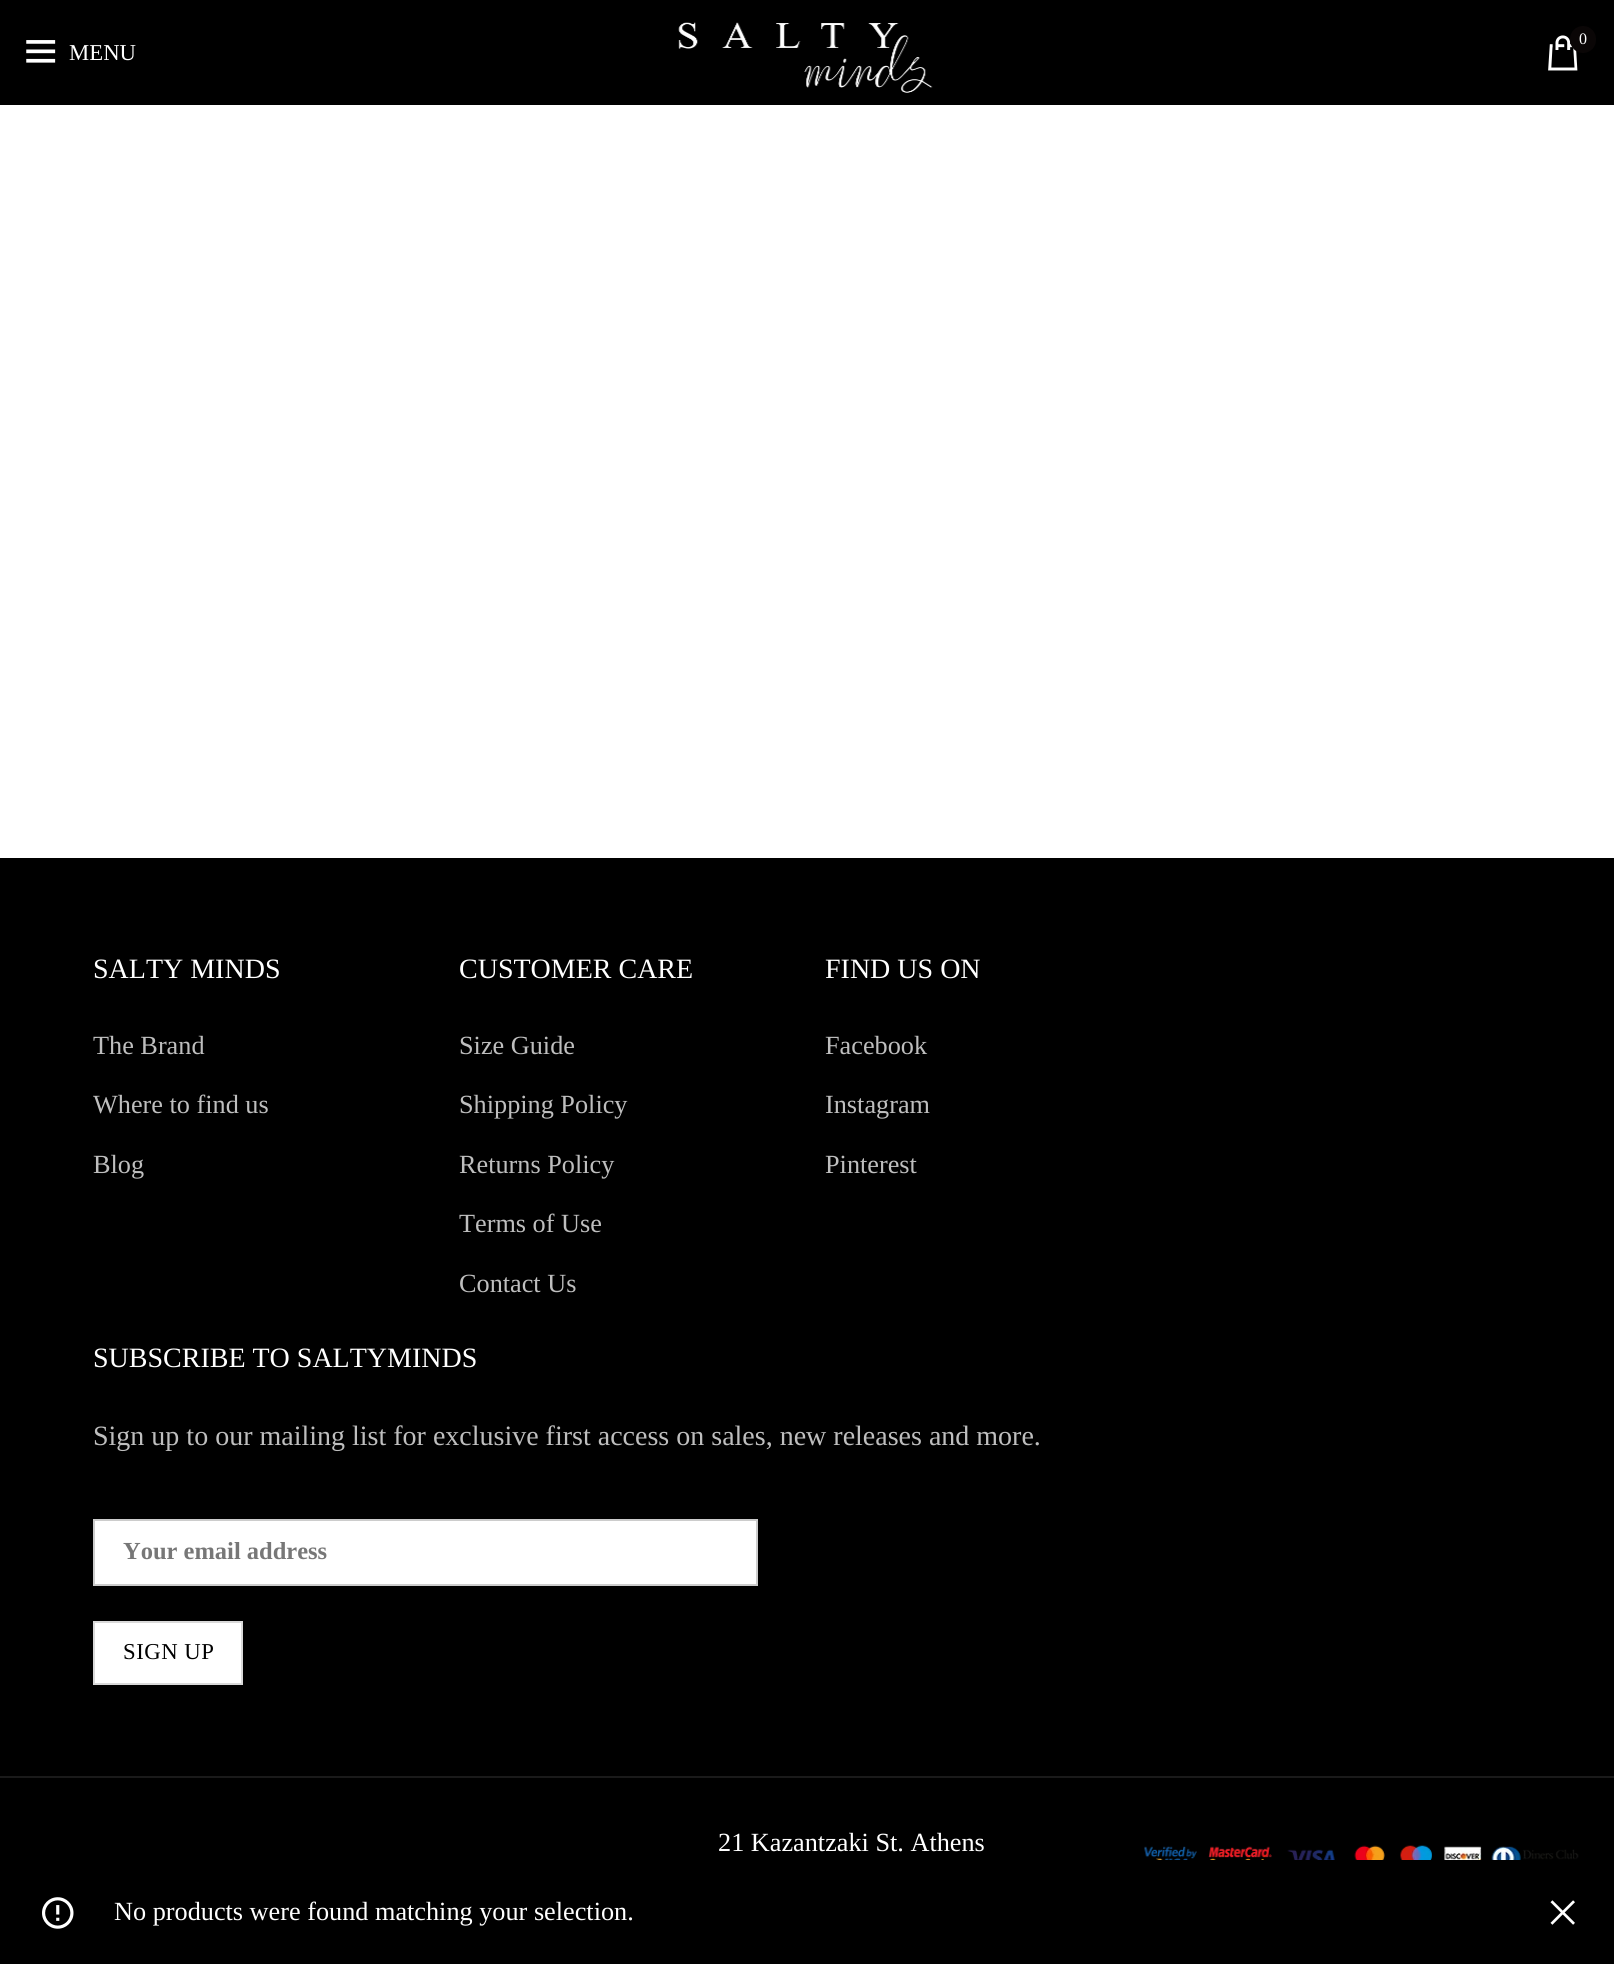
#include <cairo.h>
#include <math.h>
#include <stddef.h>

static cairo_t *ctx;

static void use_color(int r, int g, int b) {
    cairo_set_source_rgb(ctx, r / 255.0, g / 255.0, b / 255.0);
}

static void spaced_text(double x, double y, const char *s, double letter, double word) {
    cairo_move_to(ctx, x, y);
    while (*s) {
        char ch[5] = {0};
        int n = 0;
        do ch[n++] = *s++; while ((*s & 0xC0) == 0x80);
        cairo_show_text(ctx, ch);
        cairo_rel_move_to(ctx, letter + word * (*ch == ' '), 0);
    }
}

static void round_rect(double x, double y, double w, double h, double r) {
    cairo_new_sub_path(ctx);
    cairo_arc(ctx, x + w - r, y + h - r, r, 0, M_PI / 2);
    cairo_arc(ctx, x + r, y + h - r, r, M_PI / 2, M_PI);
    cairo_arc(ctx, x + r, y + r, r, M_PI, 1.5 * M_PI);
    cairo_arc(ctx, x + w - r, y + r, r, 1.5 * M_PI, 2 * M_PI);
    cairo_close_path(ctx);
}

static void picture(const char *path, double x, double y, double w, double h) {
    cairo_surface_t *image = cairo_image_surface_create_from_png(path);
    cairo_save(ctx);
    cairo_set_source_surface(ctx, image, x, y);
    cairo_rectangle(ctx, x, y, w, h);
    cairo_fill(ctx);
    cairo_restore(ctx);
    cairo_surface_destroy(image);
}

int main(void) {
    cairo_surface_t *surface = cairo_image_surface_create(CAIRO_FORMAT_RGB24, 1614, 1964);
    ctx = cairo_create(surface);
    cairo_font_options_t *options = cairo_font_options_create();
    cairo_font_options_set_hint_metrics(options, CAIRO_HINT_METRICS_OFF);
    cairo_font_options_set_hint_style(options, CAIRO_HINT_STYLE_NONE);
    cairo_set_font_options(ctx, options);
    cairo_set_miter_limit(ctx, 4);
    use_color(255, 255, 255);
    cairo_paint(ctx);
    use_color(0, 0, 0);
    cairo_rectangle(ctx, 0, 0, 1614, 105);
    cairo_fill(ctx);
    picture("img1.png", 678, 22, 255, 71);
    picture("img2.png", 1548, 35, 30, 36);
    use_color(10, 6, 6);
    round_rect(1570, 26, 26, 27, 13);
    cairo_fill(ctx);
    cairo_select_font_face(ctx, "Liberation Serif", CAIRO_FONT_SLANT_NORMAL, CAIRO_FONT_WEIGHT_NORMAL);
    cairo_set_font_size(ctx, 16);
    use_color(255, 255, 255);
    cairo_move_to(ctx, 1579, 44);
    cairo_show_text(ctx, "0");
    picture("img3.png", 26, 40, 30, 23);
    cairo_set_font_size(ctx, 22.75);
    cairo_move_to(ctx, 69, 60);
    cairo_show_text(ctx, "MENU");
    use_color(0, 0, 0);
    cairo_rectangle(ctx, 0, 858, 1614, 918);
    cairo_fill(ctx);
    cairo_set_font_size(ctx, 28);
    use_color(255, 255, 255);
    cairo_move_to(ctx, 93, 978);
    cairo_show_text(ctx, "SALTY MINDS");
    cairo_set_font_size(ctx, 26.25);
    use_color(190, 190, 190);
    cairo_move_to(ctx, 93, 1054);
    cairo_show_text(ctx, "The Brand");
    cairo_move_to(ctx, 93, 1113);
    cairo_show_text(ctx, "Where to find us");
    cairo_move_to(ctx, 93, 1173);
    cairo_show_text(ctx, "Blog");
    cairo_set_font_size(ctx, 28);
    use_color(255, 255, 255);
    cairo_move_to(ctx, 459, 978);
    cairo_show_text(ctx, "CUSTOMER CARE");
    cairo_set_font_size(ctx, 26.25);
    use_color(190, 190, 190);
    cairo_move_to(ctx, 459, 1054);
    cairo_show_text(ctx, "Size Guide");
    cairo_move_to(ctx, 459, 1113);
    cairo_show_text(ctx, "Shipping Policy");
    cairo_move_to(ctx, 459, 1173);
    cairo_show_text(ctx, "Returns Policy");
    cairo_move_to(ctx, 459, 1232);
    cairo_show_text(ctx, "Terms of Use");
    cairo_move_to(ctx, 459, 1292);
    cairo_show_text(ctx, "Contact Us");
    cairo_set_font_size(ctx, 28);
    use_color(255, 255, 255);
    cairo_move_to(ctx, 825, 978);
    cairo_show_text(ctx, "FIND US ON");
    cairo_set_font_size(ctx, 26.25);
    use_color(190, 190, 190);
    cairo_move_to(ctx, 825, 1054);
    cairo_show_text(ctx, "Facebook");
    cairo_move_to(ctx, 825, 1113);
    cairo_show_text(ctx, "Instagram");
    cairo_move_to(ctx, 825, 1173);
    cairo_show_text(ctx, "Pinterest");
    cairo_set_font_size(ctx, 28);
    use_color(255, 255, 255);
    cairo_move_to(ctx, 93, 1367);
    cairo_show_text(ctx, "SUBSCRIBE TO SALTYMINDS");
    use_color(190, 190, 190);
    cairo_move_to(ctx, 93, 1445);
    cairo_show_text(ctx, "Sign up to our mailing list for exclusive first access on sales, new releases and more.");
    use_color(255, 255, 255);
    cairo_rectangle(ctx, 94, 1520, 663, 65);
    cairo_fill_preserve(ctx);
    use_color(204, 204, 204);
    cairo_stroke(ctx);
    cairo_select_font_face(ctx, "Liberation Serif", CAIRO_FONT_SLANT_NORMAL, CAIRO_FONT_WEIGHT_BOLD);
    cairo_set_font_size(ctx, 24.5);
    use_color(119, 119, 119);
    cairo_move_to(ctx, 123, 1559);
    cairo_show_text(ctx, "Your email address");
    use_color(255, 255, 255);
    cairo_rectangle(ctx, 94, 1622, 148, 62);
    cairo_fill_preserve(ctx);
    use_color(217, 217, 217);
    cairo_stroke(ctx);
    cairo_select_font_face(ctx, "Liberation Serif", CAIRO_FONT_SLANT_NORMAL, CAIRO_FONT_WEIGHT_NORMAL);
    cairo_set_font_size(ctx, 22.75);
    use_color(0, 0, 0);
    spaced_text(123, 1659, "SIGN UP", 0.5, 0);
    cairo_rectangle(ctx, 0, 1778, 1614, 186);
    cairo_fill(ctx);
    use_color(26, 26, 26);
    cairo_rectangle(ctx, 0, 1776, 1614, 2);
    cairo_fill(ctx);
    cairo_set_font_size(ctx, 26.25);
    use_color(255, 255, 255);
    cairo_move_to(ctx, 718, 1851);
    cairo_show_text(ctx, "21 Kazantzaki St. Athens");
    picture("img4.png", 1144, 1845, 435, 15);
    picture("img5.png", 42, 1897, 32, 32);
    cairo_move_to(ctx, 114, 1920);
    cairo_show_text(ctx, "No products were found matching your selection.");
    picture("img6.png", 1550, 1900, 25, 25);
    cairo_surface_write_to_png(surface, "result.png");
    cairo_font_options_destroy(options);
    cairo_destroy(ctx);
    cairo_surface_destroy(surface);
    return 0;
}
